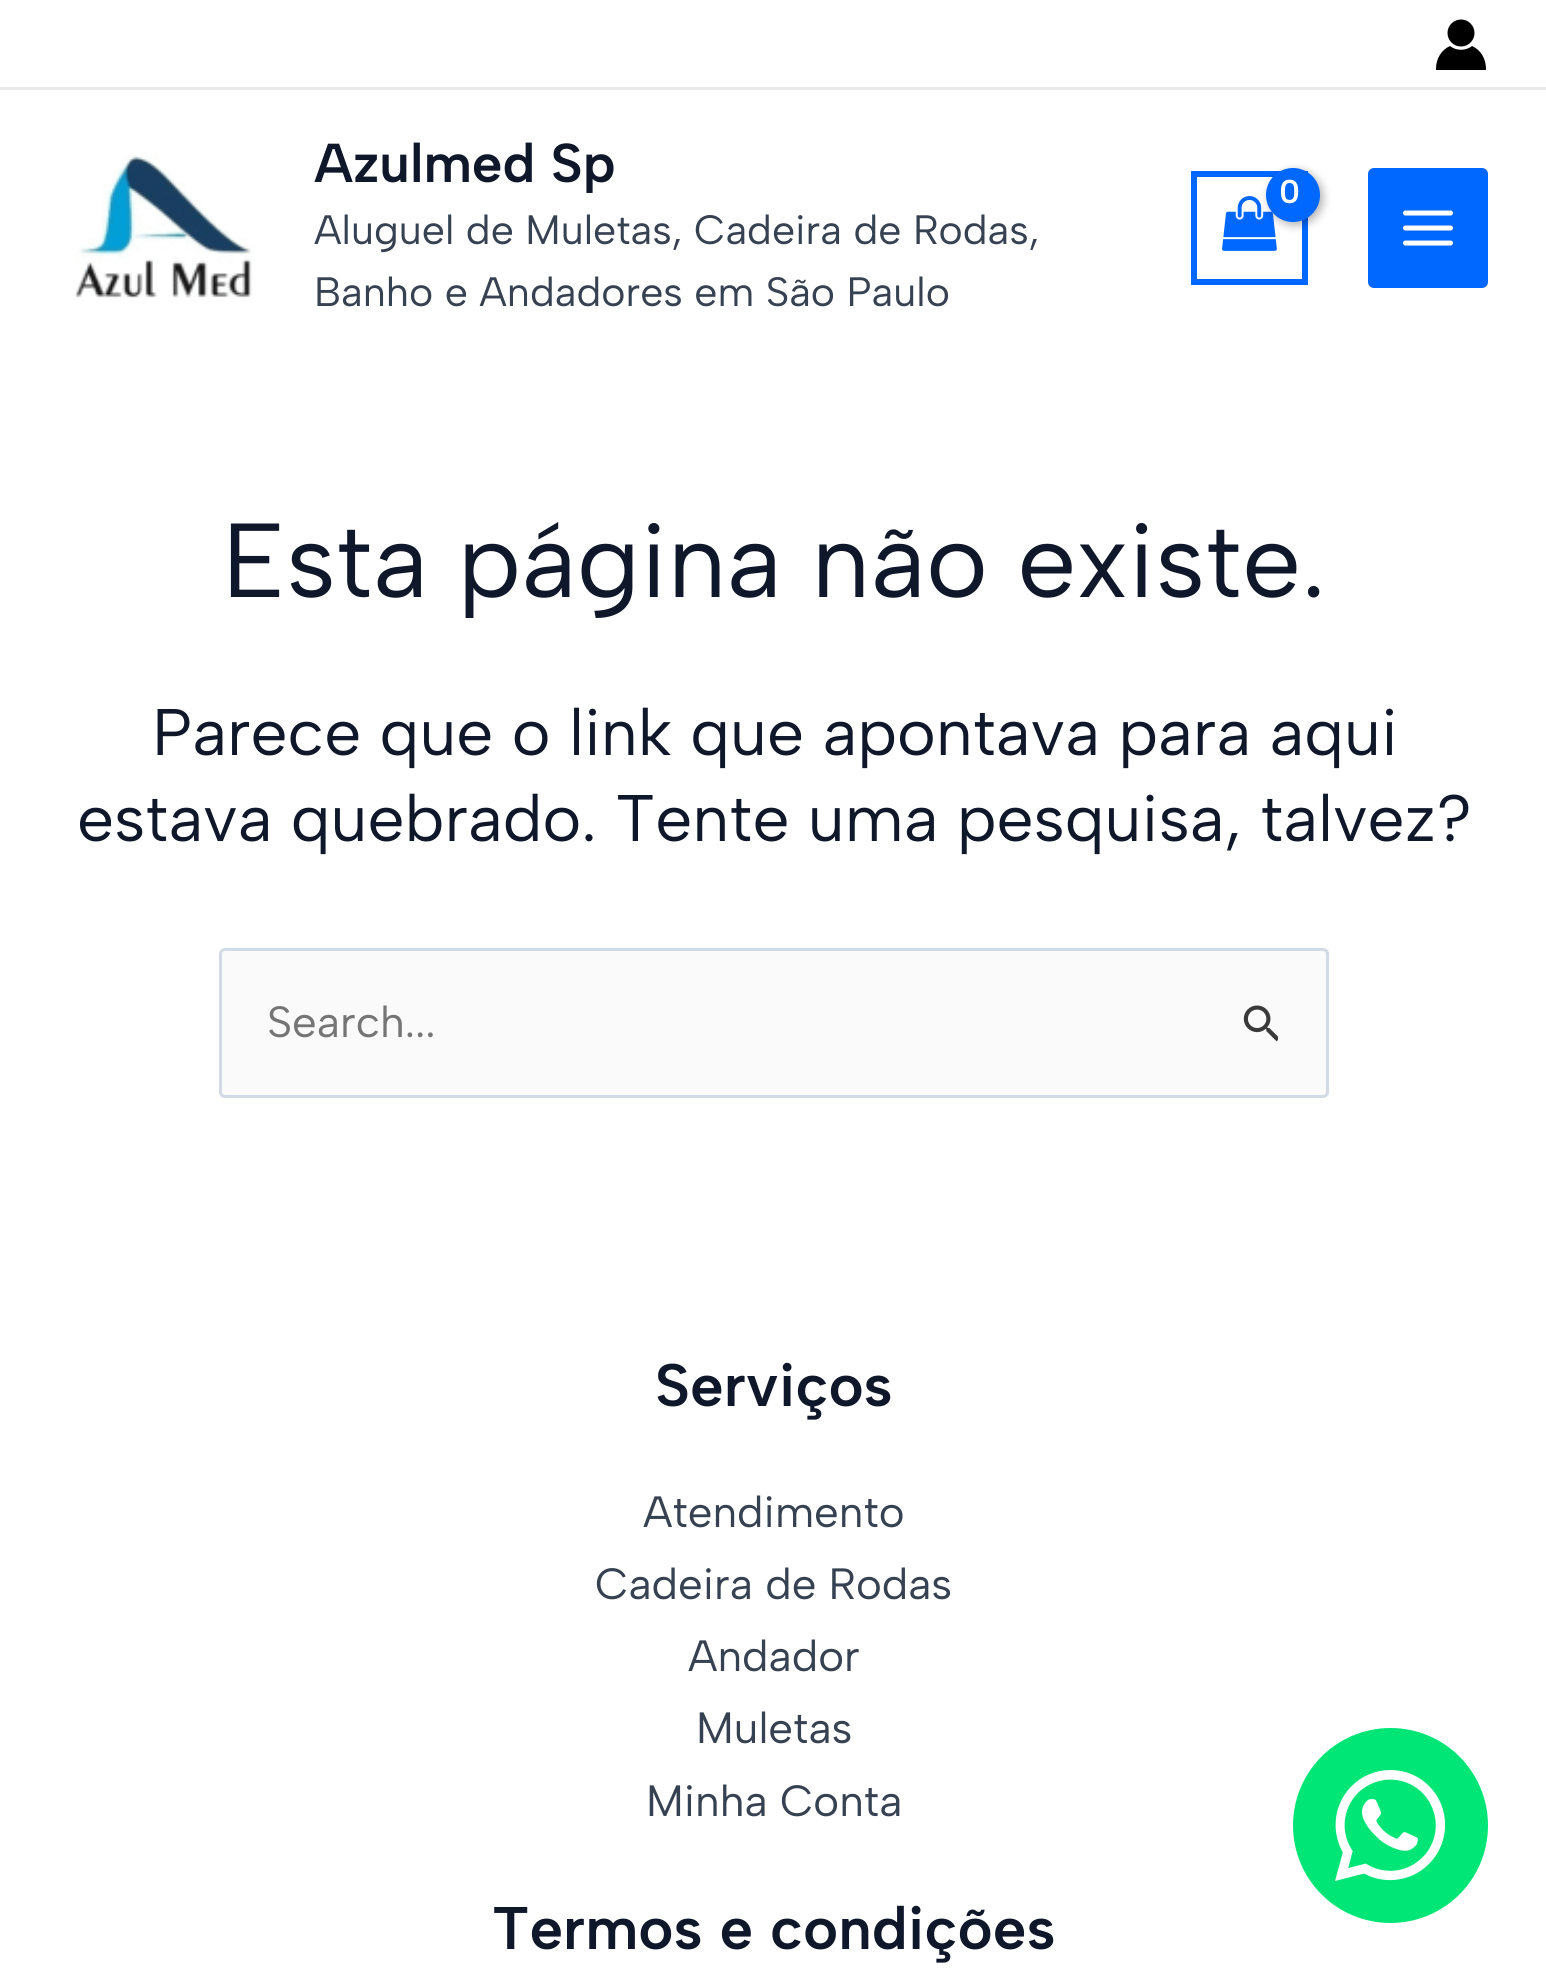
#include <cairo.h>
#include <math.h>
#include <stddef.h>

static cairo_t *ctx;

static void use_color(int r, int g, int b) {
    cairo_set_source_rgb(ctx, r / 255.0, g / 255.0, b / 255.0);
}

static void spaced_text(double x, double y, const char *s, double letter, double word) {
    cairo_move_to(ctx, x, y);
    while (*s) {
        char ch[5] = {0};
        int n = 0;
        do ch[n++] = *s++; while ((*s & 0xC0) == 0x80);
        cairo_show_text(ctx, ch);
        cairo_rel_move_to(ctx, letter + word * (*ch == ' '), 0);
    }
}

static void round_rect(double x, double y, double w, double h, double r) {
    cairo_new_sub_path(ctx);
    cairo_arc(ctx, x + w - r, y + h - r, r, 0, M_PI / 2);
    cairo_arc(ctx, x + r, y + h - r, r, M_PI / 2, M_PI);
    cairo_arc(ctx, x + r, y + r, r, M_PI, 1.5 * M_PI);
    cairo_arc(ctx, x + w - r, y + r, r, 1.5 * M_PI, 2 * M_PI);
    cairo_close_path(ctx);
}

static void shadow(double x, double y, double w, double h, double r, double blur, double alpha) {
    cairo_push_group_with_content(ctx, CAIRO_CONTENT_ALPHA);
    cairo_set_operator(ctx, CAIRO_OPERATOR_SOURCE);
    for (int i = 15; i >= -15 && fmin(w, h) + blur * i / 3 > 0; i -= 2) {
        double e = blur * i / 6;
        cairo_set_source_rgba(ctx, 0, 0, 0, alpha * erfc((i - 1) / 8.5) / 2);
        round_rect(x - e, y - e, w + 2 * e, h + 2 * e, fmax(0, fmin(r + e + blur * .6, fmin(w, h) / 2 + e)));
        cairo_fill(ctx);
    }
    cairo_pattern_t *soft = cairo_pop_group(ctx);
    cairo_mask(ctx, soft);
    cairo_pattern_destroy(soft);
}

static void picture(const char *path, double x, double y, double w, double h) {
    cairo_surface_t *image = cairo_image_surface_create_from_png(path);
    cairo_save(ctx);
    cairo_set_source_surface(ctx, image, x, y);
    cairo_rectangle(ctx, x, y, w, h);
    cairo_fill(ctx);
    cairo_restore(ctx);
    cairo_surface_destroy(image);
}

int main(void) {
    cairo_surface_t *surface = cairo_image_surface_create(CAIRO_FORMAT_RGB24, 1546, 1983);
    ctx = cairo_create(surface);
    cairo_font_options_t *options = cairo_font_options_create();
    cairo_font_options_set_hint_metrics(options, CAIRO_HINT_METRICS_OFF);
    cairo_font_options_set_hint_style(options, CAIRO_HINT_STYLE_NONE);
    cairo_set_font_options(ctx, options);
    cairo_set_miter_limit(ctx, 4);
    use_color(255, 255, 255);
    cairo_paint(ctx);
    use_color(234, 234, 234);
    cairo_rectangle(ctx, 0, 87, 1546, 3);
    cairo_fill(ctx);
    use_color(0, 0, 0);
    cairo_new_path(ctx);
    cairo_move_to(ctx, 1472, 46);
    cairo_curve_to(ctx, 1466, 51, 1456, 51, 1450, 46);
    cairo_curve_to(ctx, 1441, 50, 1436, 59, 1436, 69);
    cairo_curve_to(ctx, 1436, 70, 1436, 70, 1437, 70);
    cairo_line_to(ctx, 1485, 70);
    cairo_curve_to(ctx, 1486, 70, 1486, 70, 1486, 69);
    cairo_curve_to(ctx, 1486, 59, 1481, 50, 1472, 46);
    cairo_close_path(ctx);
    cairo_fill(ctx);
    cairo_arc(ctx, 1461, 33, 13.5, 0, 2 * M_PI);
    cairo_fill(ctx);
    picture("img1.png", 74, 155, 181, 144);
    cairo_select_font_face(ctx, "Albert Sans SemiBold", CAIRO_FONT_SLANT_NORMAL, CAIRO_FONT_WEIGHT_NORMAL);
    cairo_set_font_size(ctx, 54.75);
    use_color(15, 23, 42);
    cairo_move_to(ctx, 314, 182);
    cairo_show_text(ctx, "Azulmed Sp");
    cairo_select_font_face(ctx, "Albert Sans", CAIRO_FONT_SLANT_NORMAL, CAIRO_FONT_WEIGHT_NORMAL);
    cairo_set_font_size(ctx, 41);
    use_color(54, 65, 81);
    cairo_move_to(ctx, 314, 244);
    cairo_show_text(ctx, "Aluguel de Muletas, Cadeira de Rodas,");
    cairo_move_to(ctx, 314, 306);
    cairo_show_text(ctx, "Banho e Andadores em São Paulo");
    cairo_rectangle(ctx, 1194, 174, 111, 108);
    use_color(0, 103, 255);
    cairo_set_line_width(ctx, 6);
    cairo_stroke(ctx);
    picture("img2.png", 1222, 196, 55, 55);
    use_color(0, 0, 0);
    shadow(1269, 171, 54, 54, 27, 4.5, 0.3);
    use_color(0, 103, 255);
    cairo_arc(ctx, 1293, 195, 27, 0, 2 * M_PI);
    cairo_fill(ctx);
    cairo_select_font_face(ctx, "Albert Sans SemiBold", CAIRO_FONT_SLANT_NORMAL, CAIRO_FONT_WEIGHT_NORMAL);
    cairo_set_font_size(ctx, 33);
    use_color(255, 255, 255);
    spaced_text(1279, 203, "0", -2, 0);
    use_color(0, 103, 255);
    round_rect(1368, 168, 120, 120, 6);
    cairo_fill(ctx);
    picture("img3.png", 1403, 210, 50, 36);
    cairo_select_font_face(ctx, "Albert Sans", CAIRO_FONT_SLANT_NORMAL, CAIRO_FONT_WEIGHT_NORMAL);
    cairo_set_font_size(ctx, 105);
    use_color(15, 23, 42);
    cairo_move_to(ctx, 222, 597);
    cairo_show_text(ctx, "Esta página não existe.");
    cairo_set_font_size(ctx, 65.7);
    cairo_move_to(ctx, 152, 755);
    cairo_show_text(ctx, "Parece que o link que apontava para aqui");
    cairo_move_to(ctx, 77, 841);
    cairo_show_text(ctx, "estava quebrado. Tente uma pesquisa, talvez?");
    use_color(250, 250, 250);
    round_rect(220.5, 949.5, 1107, 147, 4.5);
    cairo_fill_preserve(ctx);
    use_color(209, 218, 229);
    cairo_set_line_width(ctx, 3);
    cairo_stroke(ctx);
    cairo_set_font_size(ctx, 43.75);
    use_color(117, 117, 117);
    cairo_move_to(ctx, 267, 1037);
    cairo_show_text(ctx, "Search...");
    picture("img4.png", 1243, 1005, 35, 37);
    cairo_select_font_face(ctx, "Albert Sans SemiBold", CAIRO_FONT_SLANT_NORMAL, CAIRO_FONT_WEIGHT_NORMAL);
    cairo_set_font_size(ctx, 60);
    use_color(15, 23, 42);
    cairo_move_to(ctx, 655, 1406);
    cairo_show_text(ctx, "Serviços");
    cairo_select_font_face(ctx, "Albert Sans", CAIRO_FONT_SLANT_NORMAL, CAIRO_FONT_WEIGHT_NORMAL);
    cairo_set_font_size(ctx, 43.75);
    use_color(54, 65, 81);
    cairo_move_to(ctx, 643, 1527);
    cairo_show_text(ctx, "Atendimento");
    cairo_move_to(ctx, 595, 1599);
    cairo_show_text(ctx, "Cadeira de Rodas");
    cairo_move_to(ctx, 688, 1671);
    cairo_show_text(ctx, "Andador");
    cairo_move_to(ctx, 696, 1743);
    cairo_show_text(ctx, "Muletas");
    cairo_move_to(ctx, 646, 1816);
    cairo_show_text(ctx, "Minha Conta");
    cairo_select_font_face(ctx, "Albert Sans SemiBold", CAIRO_FONT_SLANT_NORMAL, CAIRO_FONT_WEIGHT_NORMAL);
    cairo_set_font_size(ctx, 60);
    use_color(15, 23, 42);
    cairo_move_to(ctx, 492, 1949);
    cairo_show_text(ctx, "Termos e condições");
    use_color(0, 230, 118);
    cairo_new_path(ctx);
    cairo_arc(ctx, 1390.5, 1825.5, 97.5, 0, 2 * M_PI);
    cairo_fill(ctx);
    picture("img5.png", 1335, 1770, 111, 111);
    cairo_surface_write_to_png(surface, "result.png");
    cairo_font_options_destroy(options);
    cairo_destroy(ctx);
    cairo_surface_destroy(surface);
    return 0;
}
